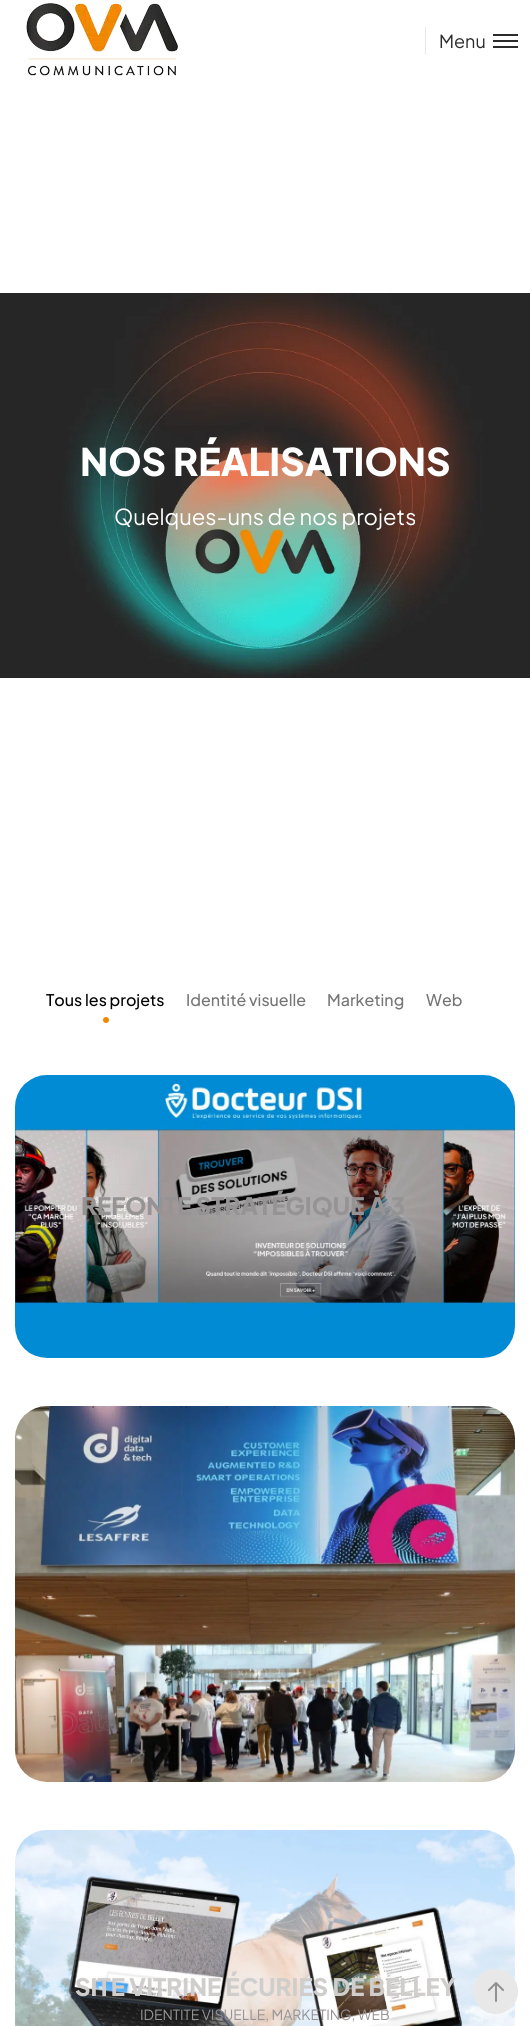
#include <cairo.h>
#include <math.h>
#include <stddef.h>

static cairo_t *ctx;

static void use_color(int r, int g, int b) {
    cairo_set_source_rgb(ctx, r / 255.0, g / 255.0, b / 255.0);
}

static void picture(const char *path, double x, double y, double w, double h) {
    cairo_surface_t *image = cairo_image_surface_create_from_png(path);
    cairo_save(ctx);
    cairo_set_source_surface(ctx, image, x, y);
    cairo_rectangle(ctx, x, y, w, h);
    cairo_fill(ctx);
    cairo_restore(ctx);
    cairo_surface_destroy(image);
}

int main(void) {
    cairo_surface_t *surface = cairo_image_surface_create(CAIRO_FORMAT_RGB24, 530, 2026);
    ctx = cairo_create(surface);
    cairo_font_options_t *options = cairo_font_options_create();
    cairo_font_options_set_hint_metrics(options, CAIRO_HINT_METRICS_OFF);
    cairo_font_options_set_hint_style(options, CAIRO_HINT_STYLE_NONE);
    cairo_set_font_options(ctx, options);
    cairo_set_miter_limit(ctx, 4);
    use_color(255, 255, 255);
    cairo_paint(ctx);
    picture("img1.png", 26, 3, 152, 73);
    use_color(232, 232, 232);
    cairo_rectangle(ctx, 425, 27, 1, 27);
    cairo_fill(ctx);
    cairo_select_font_face(ctx, "Plus Jakarta Sans", CAIRO_FONT_SLANT_NORMAL, CAIRO_FONT_WEIGHT_NORMAL);
    cairo_set_font_size(ctx, 18);
    use_color(43, 43, 43);
    cairo_move_to(ctx, 439, 48);
    cairo_show_text(ctx, "Menu");
    cairo_rectangle(ctx, 493, 40, 25, 2);
    cairo_fill(ctx);
    cairo_rectangle(ctx, 493, 34, 25, 2);
    cairo_fill(ctx);
    cairo_rectangle(ctx, 493, 46, 25, 2);
    cairo_fill(ctx);
    picture("img2.png", 0, 293, 530, 385);
    cairo_select_font_face(ctx, "Plus Jakarta Sans ExtraBold", CAIRO_FONT_SLANT_NORMAL, CAIRO_FONT_WEIGHT_NORMAL);
    cairo_set_font_size(ctx, 38);
    use_color(255, 255, 255);
    cairo_move_to(ctx, 80, 476);
    cairo_show_text(ctx, "NOS RÉALISATIONS");
    cairo_select_font_face(ctx, "Plus Jakarta Sans", CAIRO_FONT_SLANT_NORMAL, CAIRO_FONT_WEIGHT_NORMAL);
    cairo_set_font_size(ctx, 22);
    cairo_move_to(ctx, 114, 525);
    cairo_show_text(ctx, "Quelques-uns de nos projets");
    cairo_select_font_face(ctx, "Plus Jakarta Sans Medium", CAIRO_FONT_SLANT_NORMAL, CAIRO_FONT_WEIGHT_NORMAL);
    cairo_set_font_size(ctx, 16);
    use_color(0, 0, 0);
    cairo_move_to(ctx, 46, 1006);
    cairo_show_text(ctx, "Tous les projets");
    use_color(117, 117, 117);
    cairo_move_to(ctx, 186, 1006);
    cairo_show_text(ctx, "Identité visuelle");
    cairo_move_to(ctx, 327, 1006);
    cairo_show_text(ctx, "Marketing");
    cairo_move_to(ctx, 426, 1006);
    cairo_show_text(ctx, "Web");
    use_color(241, 135, 0);
    cairo_new_path(ctx);
    cairo_arc(ctx, 106, 1020, 3, 0, 2 * M_PI);
    cairo_fill(ctx);
    picture("img3.png", 15, 1075, 500, 283);
    cairo_select_font_face(ctx, "Plus Jakarta Sans ExtraBold", CAIRO_FONT_SLANT_NORMAL, CAIRO_FONT_WEIGHT_NORMAL);
    cairo_set_font_size(ctx, 24);
    use_color(150, 147, 148);
    cairo_move_to(ctx, 81, 1215);
    cairo_show_text(ctx, "REFONTE STRATÉGIQUE À 3");
    picture("img4.png", 15, 1406, 500, 376);
    picture("img5.png", 15, 1830, 500, 196);
    use_color(207, 206, 204);
    cairo_move_to(ctx, 75, 1996);
    cairo_show_text(ctx, "SITE VITRINE ÉCURIES DE BELLEY");
    cairo_select_font_face(ctx, "Plus Jakarta Sans", CAIRO_FONT_SLANT_NORMAL, CAIRO_FONT_WEIGHT_NORMAL);
    cairo_set_font_size(ctx, 14);
    use_color(150, 147, 148);
    cairo_move_to(ctx, 140, 2020);
    cairo_show_text(ctx, "IDENTITE VISUELLE, MARKETING, WEB");
    use_color(232, 232, 232);
    cairo_new_path(ctx);
    cairo_arc(ctx, 495.5, 1991.5, 22.5, 0, 2 * M_PI);
    cairo_fill(ctx);
    picture("img6.png", 488, 1982, 16, 20);
    cairo_surface_write_to_png(surface, "result.png");
    cairo_font_options_destroy(options);
    cairo_destroy(ctx);
    cairo_surface_destroy(surface);
    return 0;
}
